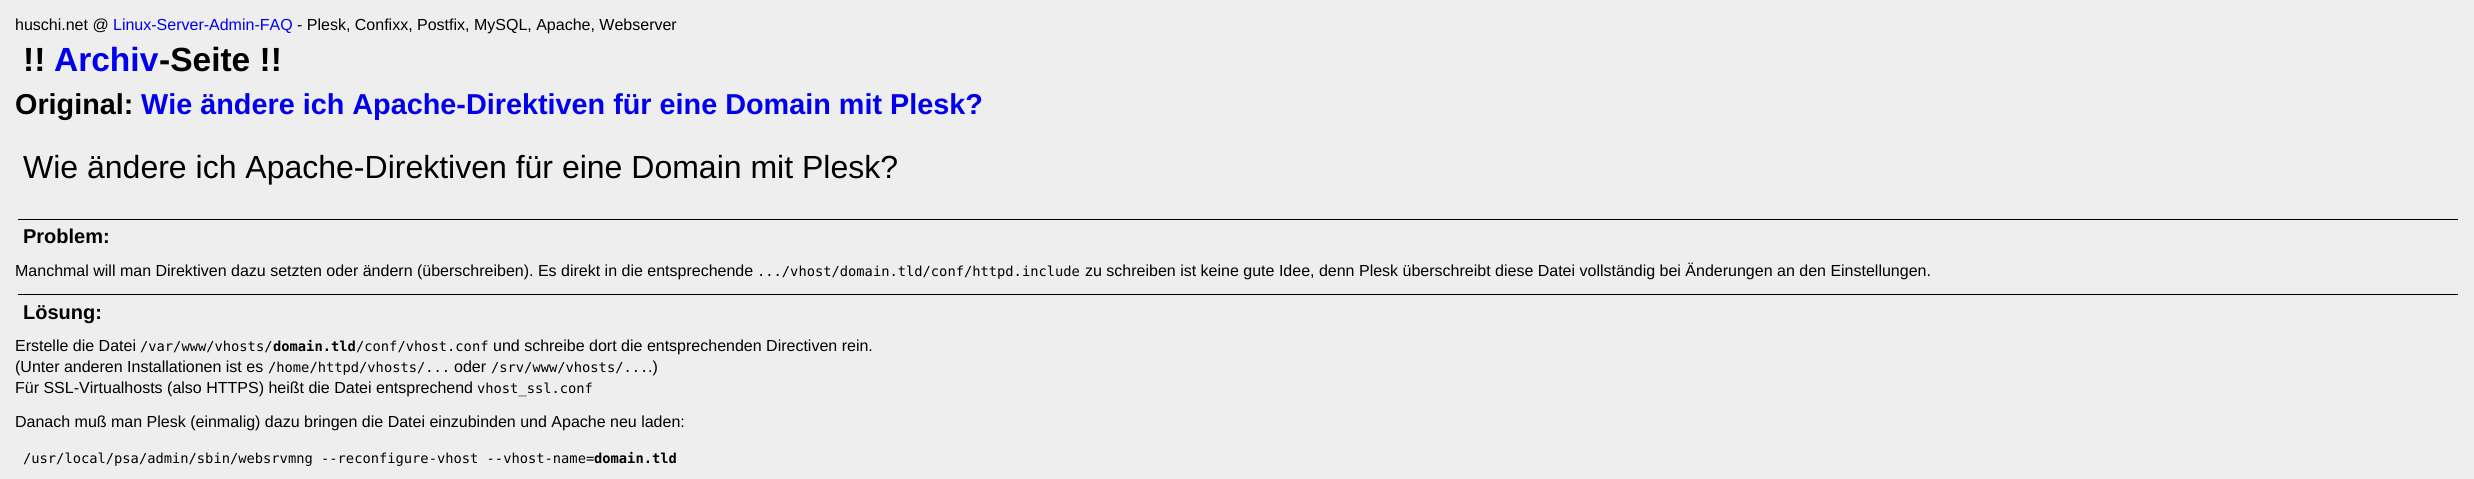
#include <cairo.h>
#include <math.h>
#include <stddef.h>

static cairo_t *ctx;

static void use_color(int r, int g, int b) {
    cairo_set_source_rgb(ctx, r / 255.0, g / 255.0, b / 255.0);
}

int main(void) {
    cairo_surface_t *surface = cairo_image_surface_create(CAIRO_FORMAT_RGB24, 2474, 479);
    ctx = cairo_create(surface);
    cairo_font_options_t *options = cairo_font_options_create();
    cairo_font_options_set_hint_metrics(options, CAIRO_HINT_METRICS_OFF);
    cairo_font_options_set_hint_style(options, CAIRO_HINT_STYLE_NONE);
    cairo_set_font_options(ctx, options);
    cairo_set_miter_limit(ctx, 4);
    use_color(238, 238, 238);
    cairo_paint(ctx);
    cairo_select_font_face(ctx, "Liberation Sans", CAIRO_FONT_SLANT_NORMAL, CAIRO_FONT_WEIGHT_NORMAL);
    cairo_set_font_size(ctx, 16);
    use_color(0, 0, 0);
    cairo_move_to(ctx, 15, 30);
    cairo_show_text(ctx, "huschi.net @");
    use_color(0, 0, 238);
    cairo_move_to(ctx, 113, 30);
    cairo_show_text(ctx, "Linux-Server-Admin-FAQ");
    use_color(0, 0, 0);
    cairo_move_to(ctx, 297, 30);
    cairo_show_text(ctx, "- Plesk, Confixx, Postfix, MySQL, Apache, Webserver");
    cairo_select_font_face(ctx, "Liberation Sans", CAIRO_FONT_SLANT_NORMAL, CAIRO_FONT_WEIGHT_BOLD);
    cairo_set_font_size(ctx, 33.5);
    cairo_move_to(ctx, 23, 71);
    cairo_show_text(ctx, "!!");
    use_color(0, 0, 238);
    cairo_move_to(ctx, 54, 71);
    cairo_show_text(ctx, "Archiv");
    use_color(0, 0, 0);
    cairo_move_to(ctx, 159, 71);
    cairo_show_text(ctx, "-Seite !!");
    cairo_set_font_size(ctx, 28.8);
    cairo_move_to(ctx, 15, 114);
    cairo_show_text(ctx, "Original:");
    use_color(0, 0, 238);
    cairo_move_to(ctx, 141, 114);
    cairo_show_text(ctx, "Wie ändere ich Apache-Direktiven für eine Domain mit Plesk?");
    cairo_select_font_face(ctx, "Liberation Sans", CAIRO_FONT_SLANT_NORMAL, CAIRO_FONT_WEIGHT_NORMAL);
    cairo_set_font_size(ctx, 32);
    use_color(0, 0, 0);
    cairo_move_to(ctx, 23, 178);
    cairo_show_text(ctx, "Wie ändere ich Apache-Direktiven für eine Domain mit Plesk?");
    cairo_rectangle(ctx, 18, 219, 2440, 1);
    cairo_fill(ctx);
    cairo_select_font_face(ctx, "Liberation Sans", CAIRO_FONT_SLANT_NORMAL, CAIRO_FONT_WEIGHT_BOLD);
    cairo_set_font_size(ctx, 20);
    cairo_move_to(ctx, 23, 243);
    cairo_show_text(ctx, "Problem:");
    cairo_select_font_face(ctx, "Liberation Sans", CAIRO_FONT_SLANT_NORMAL, CAIRO_FONT_WEIGHT_NORMAL);
    cairo_set_font_size(ctx, 16);
    cairo_move_to(ctx, 15, 276);
    cairo_show_text(ctx, "Manchmal will man Direktiven dazu setzten oder ändern (überschreiben). Es direkt in die entsprechende");
    cairo_select_font_face(ctx, "DejaVu Sans Mono", CAIRO_FONT_SLANT_NORMAL, CAIRO_FONT_WEIGHT_NORMAL);
    cairo_set_font_size(ctx, 13.75);
    cairo_move_to(ctx, 757, 276);
    cairo_show_text(ctx, ".../vhost/domain.tld/conf/httpd.include");
    cairo_select_font_face(ctx, "Liberation Sans", CAIRO_FONT_SLANT_NORMAL, CAIRO_FONT_WEIGHT_NORMAL);
    cairo_set_font_size(ctx, 16);
    cairo_move_to(ctx, 1085, 276);
    cairo_show_text(ctx, "zu schreiben ist keine gute Idee, denn Plesk überschreibt diese Datei vollständig bei Änderungen an den Einstellungen.");
    cairo_rectangle(ctx, 18, 294, 2440, 1);
    cairo_fill(ctx);
    cairo_select_font_face(ctx, "Liberation Sans", CAIRO_FONT_SLANT_NORMAL, CAIRO_FONT_WEIGHT_BOLD);
    cairo_set_font_size(ctx, 20);
    cairo_move_to(ctx, 23, 319);
    cairo_show_text(ctx, "Lösung:");
    cairo_select_font_face(ctx, "Liberation Sans", CAIRO_FONT_SLANT_NORMAL, CAIRO_FONT_WEIGHT_NORMAL);
    cairo_set_font_size(ctx, 16);
    cairo_move_to(ctx, 15, 351);
    cairo_show_text(ctx, "Erstelle die Datei");
    cairo_select_font_face(ctx, "DejaVu Sans Mono", CAIRO_FONT_SLANT_NORMAL, CAIRO_FONT_WEIGHT_NORMAL);
    cairo_set_font_size(ctx, 13.75);
    cairo_move_to(ctx, 140, 351);
    cairo_show_text(ctx, "/var/www/vhosts/");
    cairo_select_font_face(ctx, "DejaVu Sans Mono", CAIRO_FONT_SLANT_NORMAL, CAIRO_FONT_WEIGHT_BOLD);
    cairo_move_to(ctx, 273, 351);
    cairo_show_text(ctx, "domain.tld");
    cairo_select_font_face(ctx, "DejaVu Sans Mono", CAIRO_FONT_SLANT_NORMAL, CAIRO_FONT_WEIGHT_NORMAL);
    cairo_move_to(ctx, 356, 351);
    cairo_show_text(ctx, "/conf/vhost.conf");
    cairo_select_font_face(ctx, "Liberation Sans", CAIRO_FONT_SLANT_NORMAL, CAIRO_FONT_WEIGHT_NORMAL);
    cairo_set_font_size(ctx, 16);
    cairo_move_to(ctx, 493, 351);
    cairo_show_text(ctx, "und schreibe dort die entsprechenden Directiven rein.");
    cairo_move_to(ctx, 15, 372);
    cairo_show_text(ctx, "(Unter anderen Installationen ist es");
    cairo_select_font_face(ctx, "DejaVu Sans Mono", CAIRO_FONT_SLANT_NORMAL, CAIRO_FONT_WEIGHT_NORMAL);
    cairo_set_font_size(ctx, 13.75);
    cairo_move_to(ctx, 268, 372);
    cairo_show_text(ctx, "/home/httpd/vhosts/...");
    cairo_select_font_face(ctx, "Liberation Sans", CAIRO_FONT_SLANT_NORMAL, CAIRO_FONT_WEIGHT_NORMAL);
    cairo_set_font_size(ctx, 16);
    cairo_move_to(ctx, 454, 372);
    cairo_show_text(ctx, "oder");
    cairo_select_font_face(ctx, "DejaVu Sans Mono", CAIRO_FONT_SLANT_NORMAL, CAIRO_FONT_WEIGHT_NORMAL);
    cairo_set_font_size(ctx, 13.75);
    cairo_move_to(ctx, 491, 372);
    cairo_show_text(ctx, "/srv/www/vhosts/...");
    cairo_select_font_face(ctx, "Liberation Sans", CAIRO_FONT_SLANT_NORMAL, CAIRO_FONT_WEIGHT_NORMAL);
    cairo_set_font_size(ctx, 16);
    cairo_move_to(ctx, 648, 372);
    cairo_show_text(ctx, ".)");
    cairo_move_to(ctx, 15, 393);
    cairo_show_text(ctx, "Für SSL-Virtualhosts (also HTTPS) heißt die Datei entsprechend");
    cairo_select_font_face(ctx, "DejaVu Sans Mono", CAIRO_FONT_SLANT_NORMAL, CAIRO_FONT_WEIGHT_NORMAL);
    cairo_set_font_size(ctx, 13.75);
    cairo_move_to(ctx, 477, 393);
    cairo_show_text(ctx, "vhost_ssl.conf");
    cairo_select_font_face(ctx, "Liberation Sans", CAIRO_FONT_SLANT_NORMAL, CAIRO_FONT_WEIGHT_NORMAL);
    cairo_set_font_size(ctx, 16);
    cairo_move_to(ctx, 15, 427);
    cairo_show_text(ctx, "Danach muß man Plesk (einmalig) dazu bringen die Datei einzubinden und Apache neu laden:");
    cairo_select_font_face(ctx, "DejaVu Sans Mono", CAIRO_FONT_SLANT_NORMAL, CAIRO_FONT_WEIGHT_NORMAL);
    cairo_set_font_size(ctx, 13.75);
    cairo_move_to(ctx, 23, 463);
    cairo_show_text(ctx, "/usr/local/psa/admin/sbin/websrvmng --reconfigure-vhost --vhost-name=");
    cairo_select_font_face(ctx, "DejaVu Sans Mono", CAIRO_FONT_SLANT_NORMAL, CAIRO_FONT_WEIGHT_BOLD);
    cairo_move_to(ctx, 594, 463);
    cairo_show_text(ctx, "domain.tld");
    cairo_surface_write_to_png(surface, "result.png");
    cairo_font_options_destroy(options);
    cairo_destroy(ctx);
    cairo_surface_destroy(surface);
    return 0;
}
